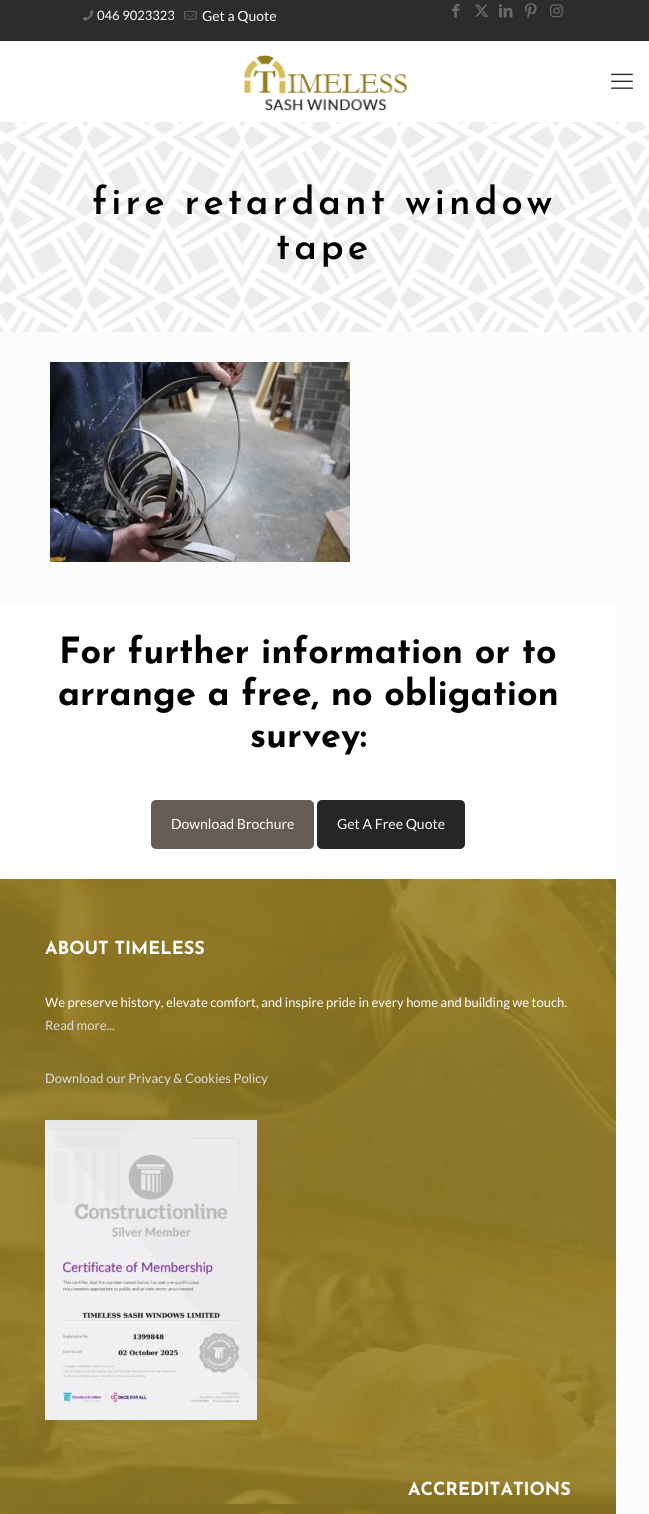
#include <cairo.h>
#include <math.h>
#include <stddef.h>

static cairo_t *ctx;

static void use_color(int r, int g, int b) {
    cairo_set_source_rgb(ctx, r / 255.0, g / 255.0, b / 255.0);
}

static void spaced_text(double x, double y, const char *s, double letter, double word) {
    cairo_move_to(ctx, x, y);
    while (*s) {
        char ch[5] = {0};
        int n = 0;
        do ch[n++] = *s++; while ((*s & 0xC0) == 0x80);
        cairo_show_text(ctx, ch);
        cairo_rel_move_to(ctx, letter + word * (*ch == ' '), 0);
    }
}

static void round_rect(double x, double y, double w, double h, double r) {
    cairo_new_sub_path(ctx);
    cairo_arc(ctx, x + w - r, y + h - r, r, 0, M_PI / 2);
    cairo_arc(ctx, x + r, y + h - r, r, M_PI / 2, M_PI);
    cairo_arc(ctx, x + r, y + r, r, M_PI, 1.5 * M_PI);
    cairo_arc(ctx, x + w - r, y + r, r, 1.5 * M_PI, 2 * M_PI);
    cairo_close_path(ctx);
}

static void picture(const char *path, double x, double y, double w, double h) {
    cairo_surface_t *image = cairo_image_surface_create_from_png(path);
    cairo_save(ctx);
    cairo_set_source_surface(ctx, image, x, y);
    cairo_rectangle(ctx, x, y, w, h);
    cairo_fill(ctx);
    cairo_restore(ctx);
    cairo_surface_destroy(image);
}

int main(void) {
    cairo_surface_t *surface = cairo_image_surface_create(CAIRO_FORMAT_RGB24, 649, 1514);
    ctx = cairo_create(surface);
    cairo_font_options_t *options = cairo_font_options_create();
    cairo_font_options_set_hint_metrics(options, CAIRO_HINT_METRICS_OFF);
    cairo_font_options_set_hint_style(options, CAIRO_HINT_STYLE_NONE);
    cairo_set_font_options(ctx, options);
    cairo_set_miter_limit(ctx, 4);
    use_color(252, 252, 252);
    cairo_paint(ctx);
    picture("img1.png", 0, 122, 649, 210);
    use_color(44, 44, 44);
    cairo_rectangle(ctx, 0, 0, 649, 41);
    cairo_fill(ctx);
    picture("img2.png", 83, 10, 11, 11);
    cairo_select_font_face(ctx, "Lato", CAIRO_FONT_SLANT_NORMAL, CAIRO_FONT_WEIGHT_NORMAL);
    cairo_set_font_size(ctx, 13);
    use_color(255, 255, 255);
    cairo_move_to(ctx, 97, 20);
    cairo_show_text(ctx, "046 9023323");
    picture("img3.png", 184, 11, 13, 9);
    cairo_set_font_size(ctx, 14);
    cairo_move_to(ctx, 202, 21);
    cairo_show_text(ctx, "Get a Quote");
    picture("img4.png", 452, 4, 8, 14);
    picture("img5.png", 475, 4, 13, 13);
    picture("img6.png", 499, 4, 14, 14);
    picture("img7.png", 525, 3, 12, 15);
    picture("img8.png", 550, 4, 13, 14);
    cairo_rectangle(ctx, 0, 41, 649, 81);
    cairo_fill(ctx);
    picture("img9.png", 243, 55, 165, 56);
    picture("img10.png", 611, 73, 22, 16);
    cairo_select_font_face(ctx, "Josefin Sans SemiBold", CAIRO_FONT_SLANT_NORMAL, CAIRO_FONT_WEIGHT_NORMAL);
    cairo_set_font_size(ctx, 38);
    use_color(0, 0, 0);
    spaced_text(92, 214, "fire retardant window", 4, 0);
    spaced_text(276, 259, "tape", 4, 0);
    picture("img11.png", 50, 362, 300, 200);
    picture("img12.png", 0, 879, 616, 635);
    use_color(255, 255, 255);
    cairo_rectangle(ctx, 0, 603, 616, 276);
    cairo_fill(ctx);
    cairo_select_font_face(ctx, "Josefin Sans", CAIRO_FONT_SLANT_NORMAL, CAIRO_FONT_WEIGHT_BOLD);
    cairo_set_font_size(ctx, 36);
    use_color(0, 0, 0);
    cairo_move_to(ctx, 59, 663);
    cairo_show_text(ctx, "For further information or to");
    cairo_move_to(ctx, 58, 705);
    cairo_show_text(ctx, "arrange a free, no obligation");
    cairo_move_to(ctx, 250, 747);
    cairo_show_text(ctx, "survey:");
    use_color(103, 92, 83);
    round_rect(151, 800, 163, 49, 5);
    cairo_fill(ctx);
    cairo_select_font_face(ctx, "Lato", CAIRO_FONT_SLANT_NORMAL, CAIRO_FONT_WEIGHT_NORMAL);
    cairo_set_font_size(ctx, 14);
    use_color(255, 255, 255);
    cairo_move_to(ctx, 171, 829);
    cairo_show_text(ctx, "Download Brochure");
    use_color(38, 38, 38);
    round_rect(317, 800, 148, 49, 5);
    cairo_fill(ctx);
    use_color(255, 255, 255);
    cairo_move_to(ctx, 337, 829);
    cairo_show_text(ctx, "Get A Free Quote");
    cairo_select_font_face(ctx, "Josefin Sans", CAIRO_FONT_SLANT_NORMAL, CAIRO_FONT_WEIGHT_BOLD);
    cairo_set_font_size(ctx, 18);
    cairo_move_to(ctx, 45, 954);
    cairo_show_text(ctx, "ABOUT TIMELESS");
    cairo_select_font_face(ctx, "Lato", CAIRO_FONT_SLANT_NORMAL, CAIRO_FONT_WEIGHT_NORMAL);
    cairo_set_font_size(ctx, 13);
    cairo_move_to(ctx, 45, 1007);
    cairo_show_text(ctx, "We preserve history, elevate comfort, and inspire pride in every home and building we touch.");
    use_color(222, 222, 222);
    cairo_move_to(ctx, 45, 1030);
    cairo_show_text(ctx, "Read more...");
    cairo_move_to(ctx, 45, 1083);
    cairo_show_text(ctx, "Download our Privacy & Cookies Policy");
    picture("img13.png", 45, 1120, 212, 300);
    cairo_select_font_face(ctx, "Josefin Sans", CAIRO_FONT_SLANT_NORMAL, CAIRO_FONT_WEIGHT_BOLD);
    cairo_set_font_size(ctx, 18);
    use_color(255, 255, 255);
    cairo_move_to(ctx, 408, 1495);
    cairo_show_text(ctx, "ACCREDITATIONS");
    cairo_surface_write_to_png(surface, "result.png");
    cairo_font_options_destroy(options);
    cairo_destroy(ctx);
    cairo_surface_destroy(surface);
    return 0;
}
